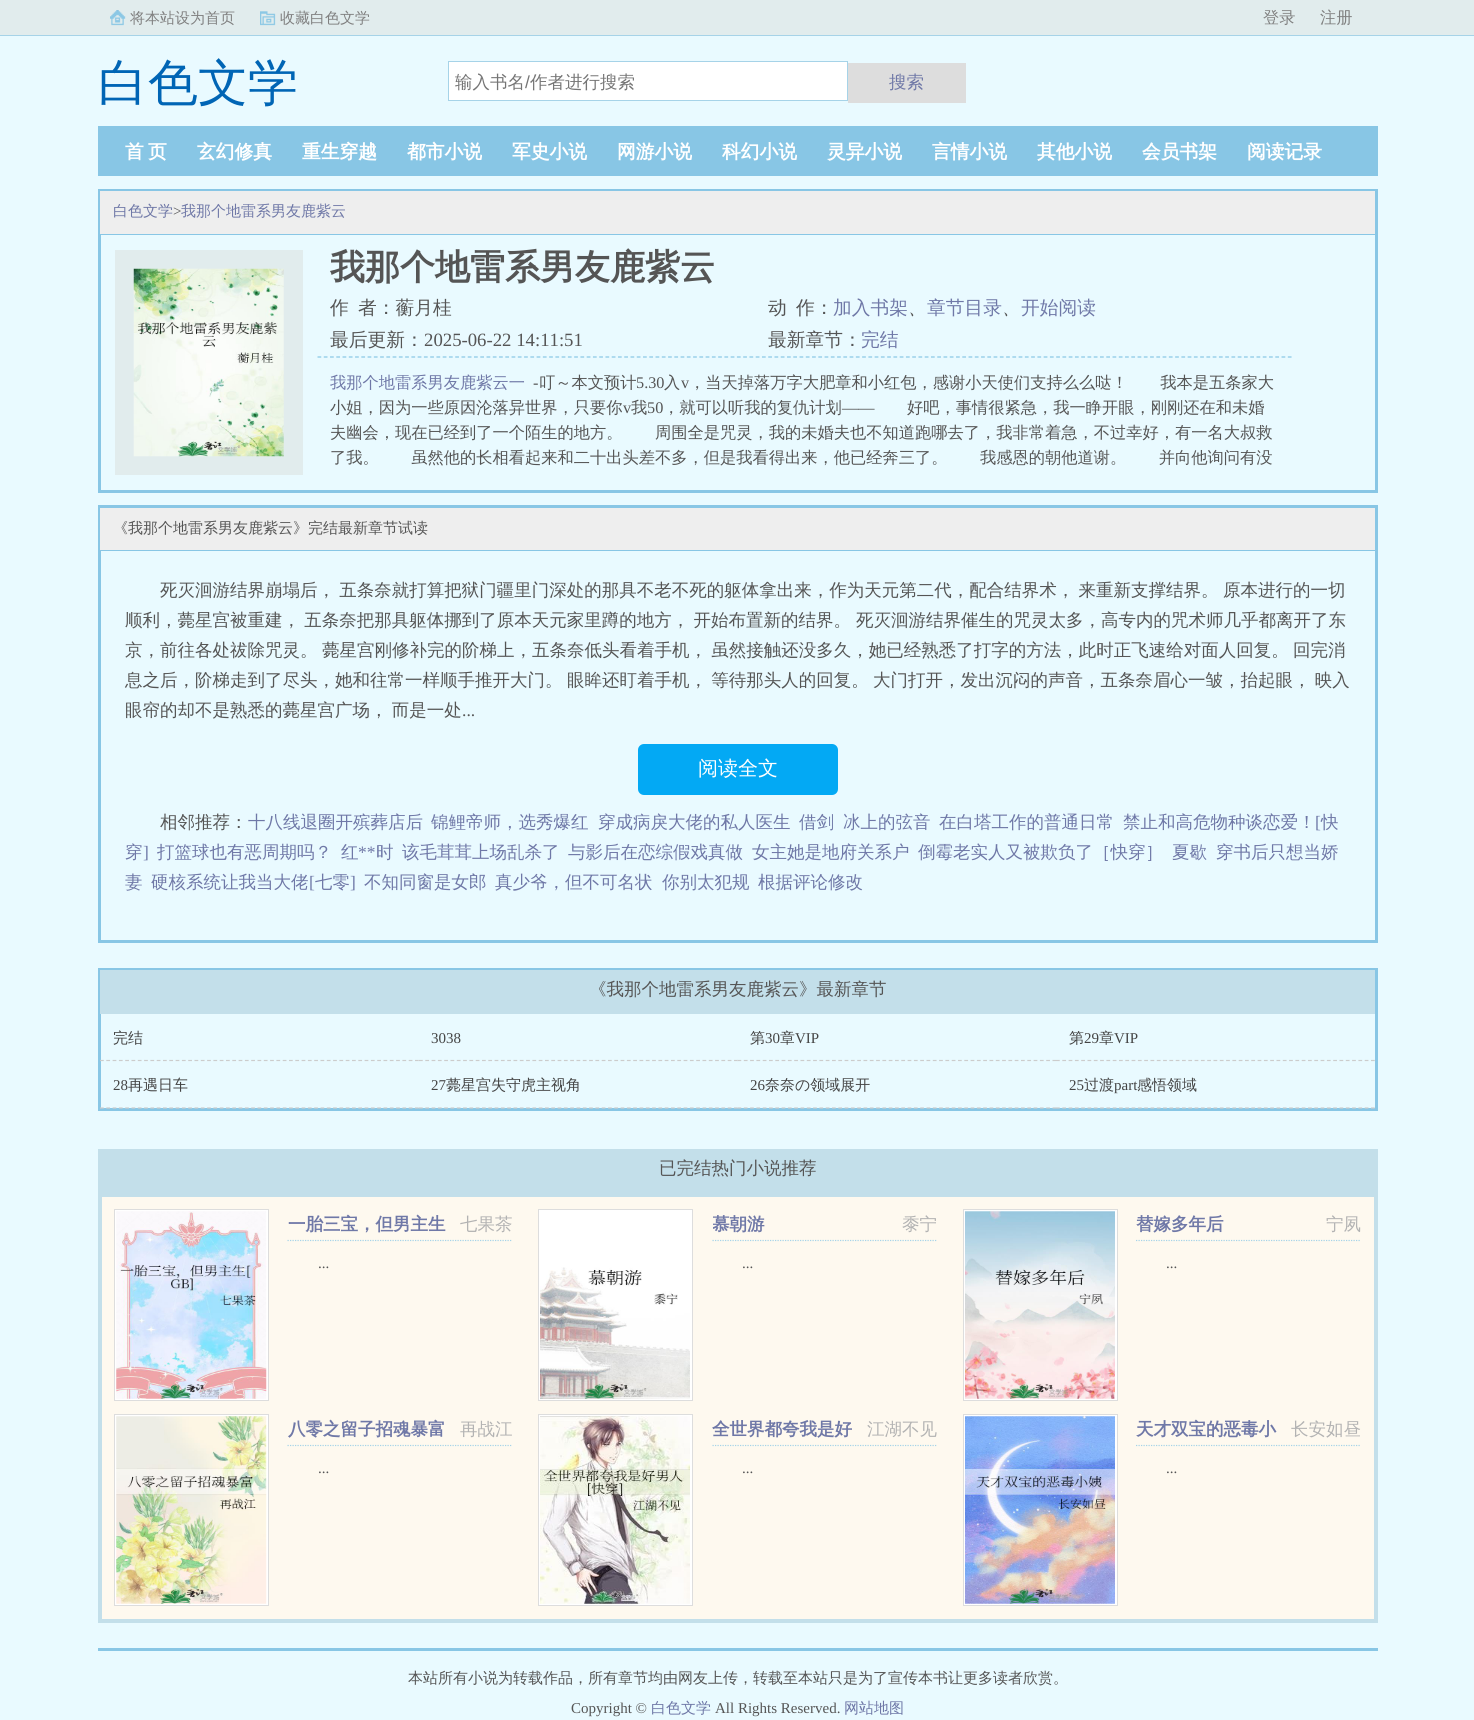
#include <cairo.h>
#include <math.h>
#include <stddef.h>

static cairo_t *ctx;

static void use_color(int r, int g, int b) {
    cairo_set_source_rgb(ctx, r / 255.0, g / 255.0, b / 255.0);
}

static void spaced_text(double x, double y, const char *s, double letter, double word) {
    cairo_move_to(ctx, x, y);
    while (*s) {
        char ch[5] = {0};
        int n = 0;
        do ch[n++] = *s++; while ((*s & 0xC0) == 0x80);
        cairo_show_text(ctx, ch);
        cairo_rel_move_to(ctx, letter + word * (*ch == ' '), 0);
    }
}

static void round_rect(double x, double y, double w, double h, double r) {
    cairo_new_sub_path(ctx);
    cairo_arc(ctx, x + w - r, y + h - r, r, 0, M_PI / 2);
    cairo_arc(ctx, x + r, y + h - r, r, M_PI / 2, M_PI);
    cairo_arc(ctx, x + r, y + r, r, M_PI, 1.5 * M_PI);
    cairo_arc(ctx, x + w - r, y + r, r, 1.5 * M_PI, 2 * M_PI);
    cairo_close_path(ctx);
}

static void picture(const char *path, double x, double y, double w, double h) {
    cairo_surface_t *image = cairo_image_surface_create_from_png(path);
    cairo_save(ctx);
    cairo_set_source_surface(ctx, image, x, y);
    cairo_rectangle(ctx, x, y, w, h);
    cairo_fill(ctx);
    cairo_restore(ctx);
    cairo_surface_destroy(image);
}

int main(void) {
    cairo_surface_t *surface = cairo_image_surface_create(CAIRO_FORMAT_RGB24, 1474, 1720);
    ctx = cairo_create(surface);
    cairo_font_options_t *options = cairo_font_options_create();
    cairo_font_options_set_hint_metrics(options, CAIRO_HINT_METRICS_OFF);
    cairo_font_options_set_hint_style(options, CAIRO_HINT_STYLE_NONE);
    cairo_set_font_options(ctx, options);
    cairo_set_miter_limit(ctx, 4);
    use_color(233, 250, 255);
    cairo_paint(ctx);
    use_color(225, 236, 237);
    cairo_rectangle(ctx, 0, 0, 1474, 35);
    cairo_fill(ctx);
    use_color(166, 211, 232);
    cairo_rectangle(ctx, 0, 35, 1474, 1);
    cairo_fill(ctx);
    picture("img1.png", 110, 10, 16, 16);
    cairo_select_font_face(ctx, "WenQuanYi Zen Hei Medium", CAIRO_FONT_SLANT_NORMAL, CAIRO_FONT_WEIGHT_NORMAL);
    cairo_set_font_size(ctx, 15);
    use_color(128, 128, 128);
    cairo_move_to(ctx, 130, 23);
    cairo_show_text(ctx, "将本站设为首页");
    picture("img2.png", 260, 11, 16, 15);
    cairo_move_to(ctx, 280, 23);
    cairo_show_text(ctx, "收藏白色文学");
    cairo_set_font_size(ctx, 16.25);
    cairo_move_to(ctx, 1263, 23);
    cairo_show_text(ctx, "登录");
    cairo_move_to(ctx, 1320, 23);
    cairo_show_text(ctx, "注册");
    cairo_set_font_size(ctx, 50);
    use_color(0, 101, 181);
    cairo_move_to(ctx, 98, 100);
    cairo_show_text(ctx, "白色文学");
    use_color(255, 255, 255);
    cairo_rectangle(ctx, 448.5, 61.5, 399, 39);
    cairo_fill_preserve(ctx);
    use_color(166, 211, 232);
    cairo_set_line_width(ctx, 1);
    cairo_stroke(ctx);
    cairo_set_font_size(ctx, 17.5);
    use_color(117, 117, 117);
    cairo_move_to(ctx, 455, 88);
    cairo_show_text(ctx, "输入书名");
    cairo_select_font_face(ctx, "Liberation Sans", CAIRO_FONT_SLANT_NORMAL, CAIRO_FONT_WEIGHT_NORMAL);
    cairo_move_to(ctx, 525, 88);
    cairo_show_text(ctx, "/");
    cairo_select_font_face(ctx, "WenQuanYi Zen Hei Medium", CAIRO_FONT_SLANT_NORMAL, CAIRO_FONT_WEIGHT_NORMAL);
    cairo_move_to(ctx, 530, 88);
    cairo_show_text(ctx, "作者进行搜索");
    use_color(221, 221, 221);
    cairo_rectangle(ctx, 848, 63, 118, 40);
    cairo_fill(ctx);
    use_color(111, 120, 167);
    cairo_move_to(ctx, 889, 88);
    cairo_show_text(ctx, "搜索");
    use_color(136, 198, 229);
    cairo_rectangle(ctx, 98, 126, 1280, 50);
    cairo_fill(ctx);
    cairo_select_font_face(ctx, "WenQuanYi Zen Hei", CAIRO_FONT_SLANT_NORMAL, CAIRO_FONT_WEIGHT_BOLD);
    cairo_set_font_size(ctx, 18.75);
    use_color(255, 255, 255);
    cairo_move_to(ctx, 125, 158);
    cairo_show_text(ctx, "首");
    cairo_move_to(ctx, 148, 158);
    cairo_show_text(ctx, "页");
    cairo_move_to(ctx, 197, 158);
    cairo_show_text(ctx, "玄幻修真");
    cairo_move_to(ctx, 302, 158);
    cairo_show_text(ctx, "重生穿越");
    cairo_move_to(ctx, 407, 158);
    cairo_show_text(ctx, "都市小说");
    cairo_move_to(ctx, 512, 158);
    cairo_show_text(ctx, "军史小说");
    cairo_move_to(ctx, 617, 158);
    cairo_show_text(ctx, "网游小说");
    cairo_move_to(ctx, 722, 158);
    cairo_show_text(ctx, "科幻小说");
    cairo_move_to(ctx, 827, 158);
    cairo_show_text(ctx, "灵异小说");
    cairo_move_to(ctx, 932, 158);
    cairo_show_text(ctx, "言情小说");
    cairo_move_to(ctx, 1037, 158);
    cairo_show_text(ctx, "其他小说");
    cairo_move_to(ctx, 1142, 158);
    cairo_show_text(ctx, "会员书架");
    cairo_move_to(ctx, 1247, 158);
    cairo_show_text(ctx, "阅读记录");
    cairo_rectangle(ctx, 99.5, 190.5, 1277, 301);
    use_color(136, 198, 229);
    cairo_set_line_width(ctx, 3);
    cairo_stroke(ctx);
    use_color(238, 238, 238);
    cairo_rectangle(ctx, 100, 191, 1275, 43);
    cairo_fill(ctx);
    use_color(136, 198, 229);
    cairo_rectangle(ctx, 100, 234, 1275, 1);
    cairo_fill(ctx);
    cairo_select_font_face(ctx, "WenQuanYi Zen Hei Medium", CAIRO_FONT_SLANT_NORMAL, CAIRO_FONT_WEIGHT_NORMAL);
    cairo_set_font_size(ctx, 15);
    use_color(111, 120, 167);
    cairo_move_to(ctx, 113, 216);
    cairo_show_text(ctx, "白色文学");
    cairo_select_font_face(ctx, "Liberation Serif", CAIRO_FONT_SLANT_NORMAL, CAIRO_FONT_WEIGHT_NORMAL);
    use_color(85, 85, 85);
    cairo_move_to(ctx, 173, 216);
    cairo_show_text(ctx, ">");
    cairo_select_font_face(ctx, "WenQuanYi Zen Hei Medium", CAIRO_FONT_SLANT_NORMAL, CAIRO_FONT_WEIGHT_NORMAL);
    use_color(111, 120, 167);
    cairo_move_to(ctx, 181, 216);
    cairo_show_text(ctx, "我那个地雷系男友鹿紫云");
    use_color(225, 236, 237);
    cairo_rectangle(ctx, 115, 250, 188, 225);
    cairo_fill(ctx);
    picture("img3.png", 133, 268, 151, 189);
    cairo_select_font_face(ctx, "WenQuanYi Zen Hei", CAIRO_FONT_SLANT_NORMAL, CAIRO_FONT_WEIGHT_BOLD);
    cairo_set_font_size(ctx, 35);
    use_color(85, 85, 85);
    cairo_move_to(ctx, 330, 279);
    cairo_show_text(ctx, "我那个地雷系男友鹿紫云");
    cairo_select_font_face(ctx, "WenQuanYi Zen Hei Medium", CAIRO_FONT_SLANT_NORMAL, CAIRO_FONT_WEIGHT_NORMAL);
    cairo_set_font_size(ctx, 18.75);
    cairo_move_to(ctx, 330, 314);
    cairo_show_text(ctx, "作");
    cairo_move_to(ctx, 358, 314);
    cairo_show_text(ctx, "者：蘅月桂");
    cairo_move_to(ctx, 768, 314);
    cairo_show_text(ctx, "动");
    cairo_move_to(ctx, 796, 314);
    cairo_show_text(ctx, "作：");
    use_color(111, 120, 167);
    cairo_move_to(ctx, 833, 314);
    cairo_show_text(ctx, "加入书架");
    cairo_select_font_face(ctx, "WenQuanYi Zen Hei Medium", CAIRO_FONT_SLANT_ITALIC, CAIRO_FONT_WEIGHT_NORMAL);
    use_color(85, 85, 85);
    cairo_move_to(ctx, 908, 314);
    cairo_show_text(ctx, "、");
    cairo_select_font_face(ctx, "WenQuanYi Zen Hei Medium", CAIRO_FONT_SLANT_NORMAL, CAIRO_FONT_WEIGHT_NORMAL);
    use_color(111, 120, 167);
    cairo_move_to(ctx, 927, 314);
    cairo_show_text(ctx, "章节目录");
    cairo_select_font_face(ctx, "WenQuanYi Zen Hei Medium", CAIRO_FONT_SLANT_ITALIC, CAIRO_FONT_WEIGHT_NORMAL);
    use_color(85, 85, 85);
    cairo_move_to(ctx, 1002, 314);
    cairo_show_text(ctx, "、");
    cairo_select_font_face(ctx, "WenQuanYi Zen Hei Medium", CAIRO_FONT_SLANT_NORMAL, CAIRO_FONT_WEIGHT_NORMAL);
    use_color(111, 120, 167);
    cairo_move_to(ctx, 1021, 314);
    cairo_show_text(ctx, "开始阅读");
    use_color(85, 85, 85);
    cairo_move_to(ctx, 330, 346);
    cairo_show_text(ctx, "最后更新：");
    cairo_select_font_face(ctx, "Liberation Serif", CAIRO_FONT_SLANT_NORMAL, CAIRO_FONT_WEIGHT_NORMAL);
    cairo_move_to(ctx, 424, 346);
    cairo_show_text(ctx, "2025-06-22 14:11:51");
    cairo_select_font_face(ctx, "WenQuanYi Zen Hei Medium", CAIRO_FONT_SLANT_NORMAL, CAIRO_FONT_WEIGHT_NORMAL);
    cairo_move_to(ctx, 768, 346);
    cairo_show_text(ctx, "最新章节：");
    use_color(111, 120, 167);
    cairo_move_to(ctx, 861, 346);
    cairo_show_text(ctx, "完结");
    cairo_new_path(ctx);
    cairo_move_to(ctx, 317.5, 357);
    cairo_line_to(ctx, 1292.5, 357);
    use_color(136, 198, 229);
    cairo_set_line_width(ctx, 1.2);
    cairo_set_dash(ctx, (double[]){3.75, 2.51}, 2, 0);
    cairo_stroke(ctx);
    cairo_set_font_size(ctx, 16.25);
    use_color(111, 120, 167);
    cairo_move_to(ctx, 330, 388);
    cairo_show_text(ctx, "我那个地雷系男友鹿紫云一");
    cairo_select_font_face(ctx, "Liberation Serif", CAIRO_FONT_SLANT_NORMAL, CAIRO_FONT_WEIGHT_NORMAL);
    use_color(85, 85, 85);
    cairo_move_to(ctx, 533, 388);
    cairo_show_text(ctx, "-");
    cairo_select_font_face(ctx, "WenQuanYi Zen Hei Medium", CAIRO_FONT_SLANT_NORMAL, CAIRO_FONT_WEIGHT_NORMAL);
    cairo_move_to(ctx, 539, 388);
    cairo_show_text(ctx, "叮～本文预计");
    cairo_select_font_face(ctx, "Liberation Serif", CAIRO_FONT_SLANT_NORMAL, CAIRO_FONT_WEIGHT_NORMAL);
    cairo_move_to(ctx, 636, 388);
    cairo_show_text(ctx, "5.30");
    cairo_select_font_face(ctx, "WenQuanYi Zen Hei Medium", CAIRO_FONT_SLANT_NORMAL, CAIRO_FONT_WEIGHT_NORMAL);
    cairo_move_to(ctx, 664, 388);
    cairo_show_text(ctx, "入");
    cairo_select_font_face(ctx, "Liberation Serif", CAIRO_FONT_SLANT_NORMAL, CAIRO_FONT_WEIGHT_NORMAL);
    cairo_move_to(ctx, 681, 388);
    cairo_show_text(ctx, "v");
    cairo_select_font_face(ctx, "WenQuanYi Zen Hei Medium", CAIRO_FONT_SLANT_NORMAL, CAIRO_FONT_WEIGHT_NORMAL);
    cairo_move_to(ctx, 689, 388);
    cairo_show_text(ctx, "，当天掉落万字大肥章和小红包，感谢小天使们支持么么哒！　　我本是五条家大");
    cairo_move_to(ctx, 330, 413);
    cairo_show_text(ctx, "小姐，因为一些原因沦落异世界，只要你");
    cairo_select_font_face(ctx, "Liberation Serif", CAIRO_FONT_SLANT_NORMAL, CAIRO_FONT_WEIGHT_NORMAL);
    cairo_move_to(ctx, 623, 413);
    cairo_show_text(ctx, "v");
    cairo_select_font_face(ctx, "WenQuanYi Zen Hei Medium", CAIRO_FONT_SLANT_NORMAL, CAIRO_FONT_WEIGHT_NORMAL);
    cairo_move_to(ctx, 631, 413);
    cairo_show_text(ctx, "我");
    cairo_select_font_face(ctx, "Liberation Serif", CAIRO_FONT_SLANT_NORMAL, CAIRO_FONT_WEIGHT_NORMAL);
    cairo_move_to(ctx, 647, 413);
    cairo_show_text(ctx, "50");
    cairo_select_font_face(ctx, "WenQuanYi Zen Hei Medium", CAIRO_FONT_SLANT_NORMAL, CAIRO_FONT_WEIGHT_NORMAL);
    cairo_move_to(ctx, 663, 413);
    cairo_show_text(ctx, "，就可以听我的复仇计划");
    cairo_select_font_face(ctx, "Liberation Serif", CAIRO_FONT_SLANT_NORMAL, CAIRO_FONT_WEIGHT_NORMAL);
    cairo_move_to(ctx, 842, 413);
    cairo_show_text(ctx, "——");
    cairo_select_font_face(ctx, "WenQuanYi Zen Hei Medium", CAIRO_FONT_SLANT_NORMAL, CAIRO_FONT_WEIGHT_NORMAL);
    cairo_move_to(ctx, 907, 413);
    cairo_show_text(ctx, "好吧，事情很紧急，我一睁开眼，刚刚还在和未婚");
    cairo_move_to(ctx, 330, 438);
    cairo_show_text(ctx, "夫幽会，现在已经到了一个陌生的地方。　　周围全是咒灵，我的未婚夫也不知道跑哪去了，我非常着急，不过幸好，有一名大叔救");
    cairo_move_to(ctx, 330, 463);
    cairo_show_text(ctx, "了我。　　虽然他的长相看起来和二十出头差不多，但是我看得出来，他已经奔三了。　　我感恩的朝他道谢。　　并向他询问有没");
    cairo_rectangle(ctx, 99.5, 506.5, 1277, 435);
    use_color(136, 198, 229);
    cairo_set_line_width(ctx, 3);
    cairo_set_dash(ctx, NULL, 0, 0);
    cairo_stroke(ctx);
    use_color(238, 238, 238);
    cairo_rectangle(ctx, 100, 508, 1275, 42);
    cairo_fill(ctx);
    use_color(136, 198, 229);
    cairo_rectangle(ctx, 100, 550, 1275, 1);
    cairo_fill(ctx);
    cairo_set_font_size(ctx, 15);
    use_color(85, 85, 85);
    cairo_move_to(ctx, 113, 533);
    cairo_show_text(ctx, "《我那个地雷系男友鹿紫云》完结最新章节试读");
    cairo_set_font_size(ctx, 17.5);
    spaced_text(160, 596, "死灭洄游结界崩塌后， 五条奈就打算把狱门疆里门深处的那具不老不死的躯体拿出来，作为天元第二代，配合结界术， 来重新支撑结界。", 0, -1);
    cairo_move_to(ctx, 1223, 596);
    cairo_show_text(ctx, "原本进行的一切");
    spaced_text(125, 626, "顺利，薨星宫被重建， 五条奈把那具躯体挪到了原本天元家里蹲的地方， 开始布置新的结界。", 0, -1);
    cairo_move_to(ctx, 856, 626);
    cairo_show_text(ctx, "死灭洄游结界催生的咒灵太多，高专内的咒术师几乎都离开了东");
    cairo_move_to(ctx, 125, 656);
    cairo_show_text(ctx, "京，前往各处祓除咒灵。");
    spaced_text(322, 656, "薨星宫刚修补完的阶梯上，五条奈低头看着手机， 虽然接触还没多久，她已经熟悉了打字的方法，此时正飞速给对面人回复。", 0, -1);
    cairo_move_to(ctx, 1293, 656);
    cairo_show_text(ctx, "回完消");
    cairo_move_to(ctx, 125, 686);
    cairo_show_text(ctx, "息之后，阶梯走到了尽头，她和往常一样顺手推开大门。");
    spaced_text(567, 686, "眼眸还盯着手机， 等待那头人的回复。", 0, -1);
    spaced_text(873, 686, "大门打开，发出沉闷的声音，五条奈眉心一皱，抬起眼， 映入", 0, -1);
    spaced_text(125, 716, "眼帘的却不是熟悉的薨星宫广场， 而是一处", 0, -1);
    cairo_select_font_face(ctx, "Liberation Serif", CAIRO_FONT_SLANT_NORMAL, CAIRO_FONT_WEIGHT_NORMAL);
    cairo_move_to(ctx, 462, 716);
    cairo_show_text(ctx, "...");
    use_color(3, 169, 244);
    round_rect(638, 744, 200, 51, 6);
    cairo_fill(ctx);
    cairo_select_font_face(ctx, "WenQuanYi Zen Hei Medium", CAIRO_FONT_SLANT_NORMAL, CAIRO_FONT_WEIGHT_NORMAL);
    cairo_set_font_size(ctx, 20);
    use_color(255, 255, 255);
    cairo_move_to(ctx, 698, 775);
    cairo_show_text(ctx, "阅读全文");
    cairo_set_font_size(ctx, 17.5);
    use_color(85, 85, 85);
    cairo_move_to(ctx, 160, 828);
    cairo_show_text(ctx, "相邻推荐：");
    use_color(111, 120, 167);
    cairo_move_to(ctx, 248, 828);
    cairo_show_text(ctx, "十八线退圈开殡葬店后");
    cairo_move_to(ctx, 431, 828);
    cairo_show_text(ctx, "锦鲤帝师，选秀爆红");
    cairo_move_to(ctx, 598, 828);
    cairo_show_text(ctx, "穿成病戾大佬的私人医生");
    cairo_move_to(ctx, 799, 828);
    cairo_show_text(ctx, "借剑");
    cairo_move_to(ctx, 843, 828);
    cairo_show_text(ctx, "冰上的弦音");
    cairo_move_to(ctx, 939, 828);
    cairo_show_text(ctx, "在白塔工作的普通日常");
    cairo_move_to(ctx, 1123, 828);
    cairo_show_text(ctx, "禁止和高危物种谈恋爱！");
    cairo_select_font_face(ctx, "Liberation Serif", CAIRO_FONT_SLANT_NORMAL, CAIRO_FONT_WEIGHT_NORMAL);
    cairo_move_to(ctx, 1315, 828);
    cairo_show_text(ctx, "[");
    cairo_select_font_face(ctx, "WenQuanYi Zen Hei Medium", CAIRO_FONT_SLANT_NORMAL, CAIRO_FONT_WEIGHT_NORMAL);
    cairo_move_to(ctx, 1321, 828);
    cairo_show_text(ctx, "快");
    cairo_move_to(ctx, 125, 858);
    cairo_show_text(ctx, "穿");
    cairo_select_font_face(ctx, "Liberation Serif", CAIRO_FONT_SLANT_NORMAL, CAIRO_FONT_WEIGHT_NORMAL);
    cairo_move_to(ctx, 143, 858);
    cairo_show_text(ctx, "]");
    cairo_select_font_face(ctx, "WenQuanYi Zen Hei Medium", CAIRO_FONT_SLANT_NORMAL, CAIRO_FONT_WEIGHT_NORMAL);
    cairo_move_to(ctx, 157, 858);
    cairo_show_text(ctx, "打篮球也有恶周期吗？");
    cairo_move_to(ctx, 341, 858);
    cairo_show_text(ctx, "红");
    cairo_select_font_face(ctx, "Liberation Serif", CAIRO_FONT_SLANT_NORMAL, CAIRO_FONT_WEIGHT_NORMAL);
    cairo_move_to(ctx, 358, 858);
    cairo_show_text(ctx, "**");
    cairo_select_font_face(ctx, "WenQuanYi Zen Hei Medium", CAIRO_FONT_SLANT_NORMAL, CAIRO_FONT_WEIGHT_NORMAL);
    cairo_move_to(ctx, 376, 858);
    cairo_show_text(ctx, "时");
    cairo_move_to(ctx, 402, 858);
    cairo_show_text(ctx, "该毛茸茸上场乱杀了");
    cairo_move_to(ctx, 568, 858);
    cairo_show_text(ctx, "与影后在恋综假戏真做");
    cairo_move_to(ctx, 752, 858);
    cairo_show_text(ctx, "女主她是地府关系户");
    cairo_move_to(ctx, 918, 858);
    cairo_show_text(ctx, "倒霉老实人又被欺负了［快穿］");
    cairo_move_to(ctx, 1172, 858);
    cairo_show_text(ctx, "夏歇");
    cairo_move_to(ctx, 1216, 858);
    cairo_show_text(ctx, "穿书后只想当娇");
    cairo_move_to(ctx, 125, 888);
    cairo_show_text(ctx, "妻");
    cairo_move_to(ctx, 151, 888);
    cairo_show_text(ctx, "硬核系统让我当大佬");
    cairo_select_font_face(ctx, "Liberation Serif", CAIRO_FONT_SLANT_NORMAL, CAIRO_FONT_WEIGHT_NORMAL);
    cairo_move_to(ctx, 309, 888);
    cairo_show_text(ctx, "[");
    cairo_select_font_face(ctx, "WenQuanYi Zen Hei Medium", CAIRO_FONT_SLANT_NORMAL, CAIRO_FONT_WEIGHT_NORMAL);
    cairo_move_to(ctx, 315, 888);
    cairo_show_text(ctx, "七零");
    cairo_select_font_face(ctx, "Liberation Serif", CAIRO_FONT_SLANT_NORMAL, CAIRO_FONT_WEIGHT_NORMAL);
    cairo_move_to(ctx, 350, 888);
    cairo_show_text(ctx, "]");
    cairo_select_font_face(ctx, "WenQuanYi Zen Hei Medium", CAIRO_FONT_SLANT_NORMAL, CAIRO_FONT_WEIGHT_NORMAL);
    cairo_move_to(ctx, 364, 888);
    cairo_show_text(ctx, "不知同窗是女郎");
    cairo_move_to(ctx, 495, 888);
    cairo_show_text(ctx, "真少爷，但不可名状");
    cairo_move_to(ctx, 662, 888);
    cairo_show_text(ctx, "你别太犯规");
    cairo_move_to(ctx, 758, 888);
    cairo_show_text(ctx, "根据评论修改");
    cairo_rectangle(ctx, 99.5, 969.5, 1277, 140);
    use_color(136, 198, 229);
    cairo_stroke(ctx);
    use_color(195, 223, 234);
    cairo_rectangle(ctx, 100, 970, 1275, 44);
    cairo_fill(ctx);
    use_color(85, 85, 85);
    cairo_move_to(ctx, 589, 995);
    cairo_show_text(ctx, "《我那个地雷系男友鹿紫云》最新章节");
    cairo_new_path(ctx);
    cairo_move_to(ctx, 100, 1060.5);
    cairo_line_to(ctx, 419, 1060.5);
    use_color(204, 204, 204);
    cairo_set_line_width(ctx, 1.2);
    cairo_set_dash(ctx, (double[]){3.75, 2.55}, 2, 0);
    cairo_stroke(ctx);
    cairo_set_font_size(ctx, 15);
    use_color(68, 68, 68);
    cairo_move_to(ctx, 113, 1043);
    cairo_show_text(ctx, "完结");
    cairo_new_path(ctx);
    cairo_move_to(ctx, 419, 1060.5);
    cairo_line_to(ctx, 737.5, 1060.5);
    use_color(204, 204, 204);
    cairo_stroke(ctx);
    cairo_select_font_face(ctx, "Liberation Serif", CAIRO_FONT_SLANT_NORMAL, CAIRO_FONT_WEIGHT_NORMAL);
    use_color(68, 68, 68);
    cairo_move_to(ctx, 431, 1043);
    cairo_show_text(ctx, "3038");
    cairo_new_path(ctx);
    cairo_move_to(ctx, 737.5, 1060.5);
    cairo_line_to(ctx, 1056, 1060.5);
    use_color(204, 204, 204);
    cairo_stroke(ctx);
    cairo_select_font_face(ctx, "WenQuanYi Zen Hei Medium", CAIRO_FONT_SLANT_NORMAL, CAIRO_FONT_WEIGHT_NORMAL);
    use_color(68, 68, 68);
    cairo_move_to(ctx, 750, 1043);
    cairo_show_text(ctx, "第");
    cairo_select_font_face(ctx, "Liberation Serif", CAIRO_FONT_SLANT_NORMAL, CAIRO_FONT_WEIGHT_NORMAL);
    cairo_move_to(ctx, 765, 1043);
    cairo_show_text(ctx, "30");
    cairo_select_font_face(ctx, "WenQuanYi Zen Hei Medium", CAIRO_FONT_SLANT_NORMAL, CAIRO_FONT_WEIGHT_NORMAL);
    cairo_move_to(ctx, 780, 1043);
    cairo_show_text(ctx, "章");
    cairo_select_font_face(ctx, "Liberation Serif", CAIRO_FONT_SLANT_NORMAL, CAIRO_FONT_WEIGHT_NORMAL);
    cairo_move_to(ctx, 795, 1043);
    cairo_show_text(ctx, "VIP");
    cairo_new_path(ctx);
    cairo_move_to(ctx, 1056, 1060.5);
    cairo_line_to(ctx, 1375, 1060.5);
    use_color(204, 204, 204);
    cairo_stroke(ctx);
    cairo_select_font_face(ctx, "WenQuanYi Zen Hei Medium", CAIRO_FONT_SLANT_NORMAL, CAIRO_FONT_WEIGHT_NORMAL);
    use_color(68, 68, 68);
    cairo_move_to(ctx, 1069, 1043);
    cairo_show_text(ctx, "第");
    cairo_select_font_face(ctx, "Liberation Serif", CAIRO_FONT_SLANT_NORMAL, CAIRO_FONT_WEIGHT_NORMAL);
    cairo_move_to(ctx, 1084, 1043);
    cairo_show_text(ctx, "29");
    cairo_select_font_face(ctx, "WenQuanYi Zen Hei Medium", CAIRO_FONT_SLANT_NORMAL, CAIRO_FONT_WEIGHT_NORMAL);
    cairo_move_to(ctx, 1099, 1043);
    cairo_show_text(ctx, "章");
    cairo_select_font_face(ctx, "Liberation Serif", CAIRO_FONT_SLANT_NORMAL, CAIRO_FONT_WEIGHT_NORMAL);
    cairo_move_to(ctx, 1114, 1043);
    cairo_show_text(ctx, "VIP");
    cairo_new_path(ctx);
    cairo_move_to(ctx, 100, 1108);
    cairo_line_to(ctx, 419, 1108);
    use_color(204, 204, 204);
    cairo_stroke(ctx);
    use_color(68, 68, 68);
    cairo_move_to(ctx, 113, 1090);
    cairo_show_text(ctx, "28");
    cairo_select_font_face(ctx, "WenQuanYi Zen Hei Medium", CAIRO_FONT_SLANT_NORMAL, CAIRO_FONT_WEIGHT_NORMAL);
    cairo_move_to(ctx, 128, 1090);
    cairo_show_text(ctx, "再遇日车");
    cairo_new_path(ctx);
    cairo_move_to(ctx, 419, 1108);
    cairo_line_to(ctx, 737.5, 1108);
    use_color(204, 204, 204);
    cairo_stroke(ctx);
    cairo_select_font_face(ctx, "Liberation Serif", CAIRO_FONT_SLANT_NORMAL, CAIRO_FONT_WEIGHT_NORMAL);
    use_color(68, 68, 68);
    cairo_move_to(ctx, 431, 1090);
    cairo_show_text(ctx, "27");
    cairo_select_font_face(ctx, "WenQuanYi Zen Hei Medium", CAIRO_FONT_SLANT_NORMAL, CAIRO_FONT_WEIGHT_NORMAL);
    cairo_move_to(ctx, 446, 1090);
    cairo_show_text(ctx, "薨星宫失守虎主视角");
    cairo_new_path(ctx);
    cairo_move_to(ctx, 737.5, 1108);
    cairo_line_to(ctx, 1056, 1108);
    use_color(204, 204, 204);
    cairo_stroke(ctx);
    cairo_select_font_face(ctx, "Liberation Serif", CAIRO_FONT_SLANT_NORMAL, CAIRO_FONT_WEIGHT_NORMAL);
    use_color(68, 68, 68);
    cairo_move_to(ctx, 750, 1090);
    cairo_show_text(ctx, "26");
    cairo_select_font_face(ctx, "WenQuanYi Zen Hei Medium", CAIRO_FONT_SLANT_NORMAL, CAIRO_FONT_WEIGHT_NORMAL);
    cairo_move_to(ctx, 765, 1090);
    cairo_show_text(ctx, "奈奈の领域展开");
    cairo_new_path(ctx);
    cairo_move_to(ctx, 1056, 1108);
    cairo_line_to(ctx, 1375, 1108);
    use_color(204, 204, 204);
    cairo_stroke(ctx);
    cairo_select_font_face(ctx, "Liberation Serif", CAIRO_FONT_SLANT_NORMAL, CAIRO_FONT_WEIGHT_NORMAL);
    use_color(68, 68, 68);
    cairo_move_to(ctx, 1069, 1090);
    cairo_show_text(ctx, "25");
    cairo_select_font_face(ctx, "WenQuanYi Zen Hei Medium", CAIRO_FONT_SLANT_NORMAL, CAIRO_FONT_WEIGHT_NORMAL);
    cairo_move_to(ctx, 1084, 1090);
    cairo_show_text(ctx, "过渡");
    cairo_select_font_face(ctx, "Liberation Serif", CAIRO_FONT_SLANT_NORMAL, CAIRO_FONT_WEIGHT_NORMAL);
    cairo_move_to(ctx, 1114, 1090);
    cairo_show_text(ctx, "part");
    cairo_select_font_face(ctx, "WenQuanYi Zen Hei Medium", CAIRO_FONT_SLANT_NORMAL, CAIRO_FONT_WEIGHT_NORMAL);
    cairo_move_to(ctx, 1137, 1090);
    cairo_show_text(ctx, "感悟领域");
    use_color(195, 223, 234);
    cairo_rectangle(ctx, 98, 1149, 1280, 44);
    cairo_fill(ctx);
    cairo_set_font_size(ctx, 17.5);
    use_color(85, 85, 85);
    cairo_move_to(ctx, 659, 1174);
    cairo_show_text(ctx, "已完结热门小说推荐");
    use_color(254, 249, 239);
    cairo_rectangle(ctx, 100, 1195, 1276, 426);
    cairo_fill_preserve(ctx);
    use_color(195, 223, 234);
    cairo_set_line_width(ctx, 4);
    cairo_set_dash(ctx, NULL, 0, 0);
    cairo_stroke(ctx);
    use_color(255, 255, 255);
    cairo_rectangle(ctx, 114.5, 1209.5, 154, 191);
    cairo_fill_preserve(ctx);
    use_color(221, 221, 221);
    cairo_set_line_width(ctx, 1);
    cairo_stroke(ctx);
    picture("img4.png", 116, 1211, 151, 188);
    cairo_new_path(ctx);
    cairo_move_to(ctx, 287.5, 1240.5);
    cairo_line_to(ctx, 512.5, 1240.5);
    use_color(166, 211, 232);
    cairo_set_line_width(ctx, 1.2);
    cairo_set_dash(ctx, (double[]){1.25, 1.25}, 2, 0);
    cairo_stroke(ctx);
    cairo_select_font_face(ctx, "WenQuanYi Zen Hei", CAIRO_FONT_SLANT_NORMAL, CAIRO_FONT_WEIGHT_BOLD);
    use_color(111, 120, 167);
    cairo_move_to(ctx, 288, 1230);
    cairo_show_text(ctx, "一胎三宝，但男主生");
    cairo_select_font_face(ctx, "WenQuanYi Zen Hei Medium", CAIRO_FONT_SLANT_NORMAL, CAIRO_FONT_WEIGHT_NORMAL);
    use_color(179, 179, 179);
    cairo_move_to(ctx, 460, 1230);
    cairo_show_text(ctx, "七果茶");
    cairo_select_font_face(ctx, "Liberation Serif", CAIRO_FONT_SLANT_NORMAL, CAIRO_FONT_WEIGHT_NORMAL);
    cairo_set_font_size(ctx, 15);
    use_color(85, 85, 85);
    cairo_move_to(ctx, 318, 1268);
    cairo_show_text(ctx, "...");
    use_color(255, 255, 255);
    cairo_rectangle(ctx, 538.5, 1209.5, 154, 191);
    cairo_fill_preserve(ctx);
    use_color(221, 221, 221);
    cairo_set_line_width(ctx, 1);
    cairo_set_dash(ctx, NULL, 0, 0);
    cairo_stroke(ctx);
    picture("img5.png", 540, 1267, 150, 132);
    cairo_new_path(ctx);
    cairo_move_to(ctx, 712.5, 1240.5);
    cairo_line_to(ctx, 937.5, 1240.5);
    use_color(166, 211, 232);
    cairo_set_line_width(ctx, 1.2);
    cairo_set_dash(ctx, (double[]){1.25, 1.25}, 2, 0);
    cairo_stroke(ctx);
    cairo_save(ctx);
    cairo_rectangle(ctx, 713, 1209, 225, 31);
    cairo_clip(ctx);
    cairo_select_font_face(ctx, "WenQuanYi Zen Hei", CAIRO_FONT_SLANT_NORMAL, CAIRO_FONT_WEIGHT_BOLD);
    cairo_set_font_size(ctx, 17.5);
    use_color(111, 120, 167);
    cairo_move_to(ctx, 712, 1230);
    cairo_show_text(ctx, "慕朝游");
    cairo_restore(ctx);
    cairo_select_font_face(ctx, "WenQuanYi Zen Hei Medium", CAIRO_FONT_SLANT_NORMAL, CAIRO_FONT_WEIGHT_NORMAL);
    cairo_set_font_size(ctx, 17.5);
    use_color(179, 179, 179);
    cairo_move_to(ctx, 902, 1230);
    cairo_show_text(ctx, "黍宁");
    cairo_select_font_face(ctx, "Liberation Serif", CAIRO_FONT_SLANT_NORMAL, CAIRO_FONT_WEIGHT_NORMAL);
    cairo_set_font_size(ctx, 15);
    use_color(85, 85, 85);
    cairo_move_to(ctx, 742, 1268);
    cairo_show_text(ctx, "...");
    use_color(255, 255, 255);
    cairo_rectangle(ctx, 963.5, 1209.5, 154, 191);
    cairo_fill_preserve(ctx);
    use_color(221, 221, 221);
    cairo_set_line_width(ctx, 1);
    cairo_set_dash(ctx, NULL, 0, 0);
    cairo_stroke(ctx);
    picture("img6.png", 965, 1211, 150, 188);
    cairo_new_path(ctx);
    cairo_move_to(ctx, 1136, 1240.5);
    cairo_line_to(ctx, 1361, 1240.5);
    use_color(166, 211, 232);
    cairo_set_line_width(ctx, 1.2);
    cairo_set_dash(ctx, (double[]){1.25, 1.25}, 2, 0);
    cairo_stroke(ctx);
    cairo_select_font_face(ctx, "WenQuanYi Zen Hei", CAIRO_FONT_SLANT_NORMAL, CAIRO_FONT_WEIGHT_BOLD);
    cairo_set_font_size(ctx, 17.5);
    use_color(111, 120, 167);
    cairo_move_to(ctx, 1136, 1230);
    cairo_show_text(ctx, "替嫁多年后");
    cairo_select_font_face(ctx, "WenQuanYi Zen Hei Medium", CAIRO_FONT_SLANT_NORMAL, CAIRO_FONT_WEIGHT_NORMAL);
    use_color(179, 179, 179);
    cairo_move_to(ctx, 1326, 1230);
    cairo_show_text(ctx, "宁夙");
    cairo_select_font_face(ctx, "Liberation Serif", CAIRO_FONT_SLANT_NORMAL, CAIRO_FONT_WEIGHT_NORMAL);
    cairo_set_font_size(ctx, 15);
    use_color(85, 85, 85);
    cairo_move_to(ctx, 1166, 1268);
    cairo_show_text(ctx, "...");
    use_color(255, 255, 255);
    cairo_rectangle(ctx, 114.5, 1414.5, 154, 191);
    cairo_fill_preserve(ctx);
    use_color(221, 221, 221);
    cairo_set_line_width(ctx, 1);
    cairo_set_dash(ctx, NULL, 0, 0);
    cairo_stroke(ctx);
    picture("img7.png", 116, 1416, 151, 188);
    cairo_new_path(ctx);
    cairo_move_to(ctx, 287.5, 1445.5);
    cairo_line_to(ctx, 512.5, 1445.5);
    use_color(166, 211, 232);
    cairo_set_line_width(ctx, 1.2);
    cairo_set_dash(ctx, (double[]){1.25, 1.25}, 2, 0);
    cairo_stroke(ctx);
    cairo_select_font_face(ctx, "WenQuanYi Zen Hei", CAIRO_FONT_SLANT_NORMAL, CAIRO_FONT_WEIGHT_BOLD);
    cairo_set_font_size(ctx, 17.5);
    use_color(111, 120, 167);
    cairo_move_to(ctx, 288, 1435);
    cairo_show_text(ctx, "八零之留子招魂暴富");
    cairo_select_font_face(ctx, "WenQuanYi Zen Hei Medium", CAIRO_FONT_SLANT_NORMAL, CAIRO_FONT_WEIGHT_NORMAL);
    use_color(179, 179, 179);
    cairo_move_to(ctx, 460, 1435);
    cairo_show_text(ctx, "再战江");
    cairo_select_font_face(ctx, "Liberation Serif", CAIRO_FONT_SLANT_NORMAL, CAIRO_FONT_WEIGHT_NORMAL);
    cairo_set_font_size(ctx, 15);
    use_color(85, 85, 85);
    cairo_move_to(ctx, 318, 1473);
    cairo_show_text(ctx, "...");
    use_color(255, 255, 255);
    cairo_rectangle(ctx, 538.5, 1414.5, 154, 191);
    cairo_fill_preserve(ctx);
    use_color(221, 221, 221);
    cairo_set_line_width(ctx, 1);
    cairo_set_dash(ctx, NULL, 0, 0);
    cairo_stroke(ctx);
    picture("img8.png", 540, 1416, 150, 188);
    cairo_new_path(ctx);
    cairo_move_to(ctx, 712.5, 1445.5);
    cairo_line_to(ctx, 937.5, 1445.5);
    use_color(166, 211, 232);
    cairo_set_line_width(ctx, 1.2);
    cairo_set_dash(ctx, (double[]){1.25, 1.25}, 2, 0);
    cairo_stroke(ctx);
    cairo_select_font_face(ctx, "WenQuanYi Zen Hei", CAIRO_FONT_SLANT_NORMAL, CAIRO_FONT_WEIGHT_BOLD);
    cairo_set_font_size(ctx, 17.5);
    use_color(111, 120, 167);
    cairo_move_to(ctx, 712, 1435);
    cairo_show_text(ctx, "全世界都夸我是好");
    cairo_select_font_face(ctx, "WenQuanYi Zen Hei Medium", CAIRO_FONT_SLANT_NORMAL, CAIRO_FONT_WEIGHT_NORMAL);
    use_color(179, 179, 179);
    cairo_move_to(ctx, 867, 1435);
    cairo_show_text(ctx, "江湖不见");
    cairo_select_font_face(ctx, "Liberation Serif", CAIRO_FONT_SLANT_NORMAL, CAIRO_FONT_WEIGHT_NORMAL);
    cairo_set_font_size(ctx, 15);
    use_color(85, 85, 85);
    cairo_move_to(ctx, 742, 1473);
    cairo_show_text(ctx, "...");
    use_color(255, 255, 255);
    cairo_rectangle(ctx, 963.5, 1414.5, 154, 191);
    cairo_fill_preserve(ctx);
    use_color(221, 221, 221);
    cairo_set_line_width(ctx, 1);
    cairo_set_dash(ctx, NULL, 0, 0);
    cairo_stroke(ctx);
    picture("img9.png", 965, 1416, 150, 188);
    cairo_new_path(ctx);
    cairo_move_to(ctx, 1136, 1445.5);
    cairo_line_to(ctx, 1361, 1445.5);
    use_color(166, 211, 232);
    cairo_set_line_width(ctx, 1.2);
    cairo_set_dash(ctx, (double[]){1.25, 1.25}, 2, 0);
    cairo_stroke(ctx);
    cairo_select_font_face(ctx, "WenQuanYi Zen Hei", CAIRO_FONT_SLANT_NORMAL, CAIRO_FONT_WEIGHT_BOLD);
    cairo_set_font_size(ctx, 17.5);
    use_color(111, 120, 167);
    cairo_move_to(ctx, 1136, 1435);
    cairo_show_text(ctx, "天才双宝的恶毒小");
    cairo_select_font_face(ctx, "WenQuanYi Zen Hei Medium", CAIRO_FONT_SLANT_NORMAL, CAIRO_FONT_WEIGHT_NORMAL);
    use_color(179, 179, 179);
    cairo_move_to(ctx, 1291, 1435);
    cairo_show_text(ctx, "长安如昼");
    cairo_select_font_face(ctx, "Liberation Serif", CAIRO_FONT_SLANT_NORMAL, CAIRO_FONT_WEIGHT_NORMAL);
    cairo_set_font_size(ctx, 15);
    use_color(85, 85, 85);
    cairo_move_to(ctx, 1166, 1473);
    cairo_show_text(ctx, "...");
    use_color(136, 198, 229);
    cairo_rectangle(ctx, 98, 1648, 1280, 3);
    cairo_fill(ctx);
    cairo_select_font_face(ctx, "WenQuanYi Zen Hei Medium", CAIRO_FONT_SLANT_NORMAL, CAIRO_FONT_WEIGHT_NORMAL);
    use_color(85, 85, 85);
    cairo_move_to(ctx, 408, 1683);
    cairo_show_text(ctx, "本站所有小说为转载作品，所有章节均由网友上传，转载至本站只是为了宣传本书让更多读者欣赏。");
    cairo_select_font_face(ctx, "Liberation Serif", CAIRO_FONT_SLANT_NORMAL, CAIRO_FONT_WEIGHT_NORMAL);
    cairo_move_to(ctx, 571, 1713);
    cairo_show_text(ctx, "Copyright ©");
    cairo_select_font_face(ctx, "WenQuanYi Zen Hei Medium", CAIRO_FONT_SLANT_NORMAL, CAIRO_FONT_WEIGHT_NORMAL);
    use_color(111, 120, 167);
    cairo_move_to(ctx, 651, 1713);
    cairo_show_text(ctx, "白色文学");
    cairo_select_font_face(ctx, "Liberation Serif", CAIRO_FONT_SLANT_NORMAL, CAIRO_FONT_WEIGHT_NORMAL);
    use_color(85, 85, 85);
    cairo_move_to(ctx, 715, 1713);
    cairo_show_text(ctx, "All Rights Reserved.");
    cairo_select_font_face(ctx, "WenQuanYi Zen Hei Medium", CAIRO_FONT_SLANT_NORMAL, CAIRO_FONT_WEIGHT_NORMAL);
    use_color(111, 120, 167);
    cairo_move_to(ctx, 844, 1713);
    cairo_show_text(ctx, "网站地图");
    cairo_surface_write_to_png(surface, "result.png");
    cairo_font_options_destroy(options);
    cairo_destroy(ctx);
    cairo_surface_destroy(surface);
    return 0;
}
